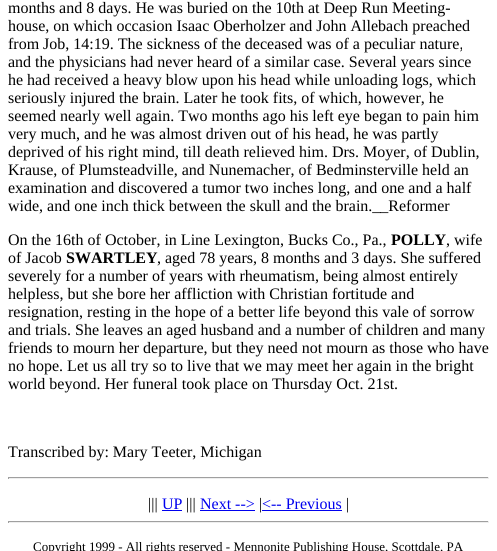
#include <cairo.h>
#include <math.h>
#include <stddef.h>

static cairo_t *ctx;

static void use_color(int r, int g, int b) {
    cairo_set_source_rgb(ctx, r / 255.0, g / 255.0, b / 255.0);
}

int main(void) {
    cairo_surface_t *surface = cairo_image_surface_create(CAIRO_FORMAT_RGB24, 497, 551);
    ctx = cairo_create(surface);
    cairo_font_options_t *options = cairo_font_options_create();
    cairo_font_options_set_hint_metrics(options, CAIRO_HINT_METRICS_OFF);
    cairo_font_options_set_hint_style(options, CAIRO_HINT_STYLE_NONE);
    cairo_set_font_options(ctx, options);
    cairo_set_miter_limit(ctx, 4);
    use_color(255, 255, 255);
    cairo_paint(ctx);
    cairo_select_font_face(ctx, "Liberation Serif", CAIRO_FONT_SLANT_NORMAL, CAIRO_FONT_WEIGHT_NORMAL);
    cairo_set_font_size(ctx, 16);
    use_color(0, 0, 0);
    cairo_move_to(ctx, 8, 13);
    cairo_show_text(ctx, "months and 8 days. He was buried on the 10th at Deep Run Meeting-");
    cairo_move_to(ctx, 8, 31);
    cairo_show_text(ctx, "house, on which occasion Isaac Oberholzer and John Allebach preached");
    cairo_move_to(ctx, 8, 49);
    cairo_show_text(ctx, "from Job, 14:19. The sickness of the deceased was of a peculiar nature,");
    cairo_move_to(ctx, 8, 67);
    cairo_show_text(ctx, "and the physicians had never heard of a similar case. Several years since");
    cairo_move_to(ctx, 8, 85);
    cairo_show_text(ctx, "he had received a heavy blow upon his head while unloading logs, which");
    cairo_move_to(ctx, 8, 103);
    cairo_show_text(ctx, "seriously injured the brain. Later he took fits, of which, however, he");
    cairo_move_to(ctx, 8, 121);
    cairo_show_text(ctx, "seemed nearly well again. Two months ago his left eye began to pain him");
    cairo_move_to(ctx, 8, 139);
    cairo_show_text(ctx, "very much, and he was almost driven out of his head, he was partly");
    cairo_move_to(ctx, 8, 157);
    cairo_show_text(ctx, "deprived of his right mind, till death relieved him. Drs. Moyer, of Dublin,");
    cairo_move_to(ctx, 8, 175);
    cairo_show_text(ctx, "Krause, of Plumsteadville, and Nunemacher, of Bedminsterville held an");
    cairo_move_to(ctx, 8, 193);
    cairo_show_text(ctx, "examination and discovered a tumor two inches long, and one and a half");
    cairo_move_to(ctx, 8, 211);
    cairo_show_text(ctx, "wide, and one inch thick between the skull and the brain.__Reformer");
    cairo_move_to(ctx, 8, 245);
    cairo_show_text(ctx, "On the 16th of October, in Line Lexington, Bucks Co., Pa.,");
    cairo_select_font_face(ctx, "Liberation Serif", CAIRO_FONT_SLANT_NORMAL, CAIRO_FONT_WEIGHT_BOLD);
    cairo_move_to(ctx, 391, 245);
    cairo_show_text(ctx, "POLLY");
    cairo_select_font_face(ctx, "Liberation Serif", CAIRO_FONT_SLANT_NORMAL, CAIRO_FONT_WEIGHT_NORMAL);
    cairo_move_to(ctx, 446, 245);
    cairo_show_text(ctx, ", wife");
    cairo_move_to(ctx, 8, 263);
    cairo_show_text(ctx, "of Jacob");
    cairo_select_font_face(ctx, "Liberation Serif", CAIRO_FONT_SLANT_NORMAL, CAIRO_FONT_WEIGHT_BOLD);
    cairo_move_to(ctx, 66, 263);
    cairo_show_text(ctx, "SWARTLEY");
    cairo_select_font_face(ctx, "Liberation Serif", CAIRO_FONT_SLANT_NORMAL, CAIRO_FONT_WEIGHT_NORMAL);
    cairo_move_to(ctx, 157, 263);
    cairo_show_text(ctx, ", aged 78 years, 8 months and 3 days. She suffered");
    cairo_move_to(ctx, 8, 281);
    cairo_show_text(ctx, "severely for a number of years with rheumatism, being almost entirely");
    cairo_move_to(ctx, 8, 299);
    cairo_show_text(ctx, "helpless, but she bore her affliction with Christian fortitude and");
    cairo_move_to(ctx, 8, 317);
    cairo_show_text(ctx, "resignation, resting in the hope of a better life beyond this vale of sorrow");
    cairo_move_to(ctx, 8, 335);
    cairo_show_text(ctx, "and trials. She leaves an aged husband and a number of children and many");
    cairo_move_to(ctx, 8, 353);
    cairo_show_text(ctx, "friends to mourn her departure, but they need not mourn as those who have");
    cairo_move_to(ctx, 8, 371);
    cairo_show_text(ctx, "no hope. Let us all try so to live that we may meet her again in the bright");
    cairo_move_to(ctx, 8, 389);
    cairo_show_text(ctx, "world beyond. Her funeral took place on Thursday Oct. 21st.");
    cairo_move_to(ctx, 8, 457);
    cairo_show_text(ctx, "Transcribed by: Mary Teeter, Michigan");
    use_color(159, 159, 159);
    cairo_rectangle(ctx, 8, 477, 481, 1);
    cairo_fill(ctx);
    use_color(238, 238, 238);
    cairo_rectangle(ctx, 488, 477, 1, 2);
    cairo_fill(ctx);
    cairo_rectangle(ctx, 8, 478, 481, 1);
    cairo_fill(ctx);
    use_color(159, 159, 159);
    cairo_rectangle(ctx, 8, 477, 1, 2);
    cairo_fill(ctx);
    use_color(0, 0, 0);
    cairo_move_to(ctx, 148, 509);
    cairo_show_text(ctx, "|||");
    use_color(0, 0, 238);
    cairo_move_to(ctx, 162, 509);
    cairo_show_text(ctx, "UP");
    cairo_rectangle(ctx, 162, 510, 20, 1);
    cairo_fill(ctx);
    use_color(0, 0, 0);
    cairo_move_to(ctx, 186, 509);
    cairo_show_text(ctx, "|||");
    use_color(0, 0, 238);
    cairo_move_to(ctx, 200, 509);
    cairo_show_text(ctx, "Next -->");
    cairo_rectangle(ctx, 200, 510, 55, 1);
    cairo_fill(ctx);
    use_color(0, 0, 0);
    cairo_move_to(ctx, 259, 509);
    cairo_show_text(ctx, "|");
    use_color(0, 0, 238);
    cairo_move_to(ctx, 262, 509);
    cairo_show_text(ctx, "<-- Previous");
    cairo_rectangle(ctx, 262, 510, 80, 1);
    cairo_fill(ctx);
    use_color(0, 0, 0);
    cairo_move_to(ctx, 346, 509);
    cairo_show_text(ctx, "|");
    use_color(159, 159, 159);
    cairo_rectangle(ctx, 8, 521, 481, 1);
    cairo_fill(ctx);
    use_color(238, 238, 238);
    cairo_rectangle(ctx, 488, 521, 1, 2);
    cairo_fill(ctx);
    cairo_rectangle(ctx, 8, 522, 481, 1);
    cairo_fill(ctx);
    use_color(159, 159, 159);
    cairo_rectangle(ctx, 8, 521, 1, 2);
    cairo_fill(ctx);
    cairo_set_font_size(ctx, 13);
    use_color(0, 0, 0);
    cairo_move_to(ctx, 33, 551);
    cairo_show_text(ctx, "Copyright 1999 - All rights reserved - Mennonite Publishing House, Scottdale, PA");
    cairo_surface_write_to_png(surface, "result.png");
    cairo_font_options_destroy(options);
    cairo_destroy(ctx);
    cairo_surface_destroy(surface);
    return 0;
}
